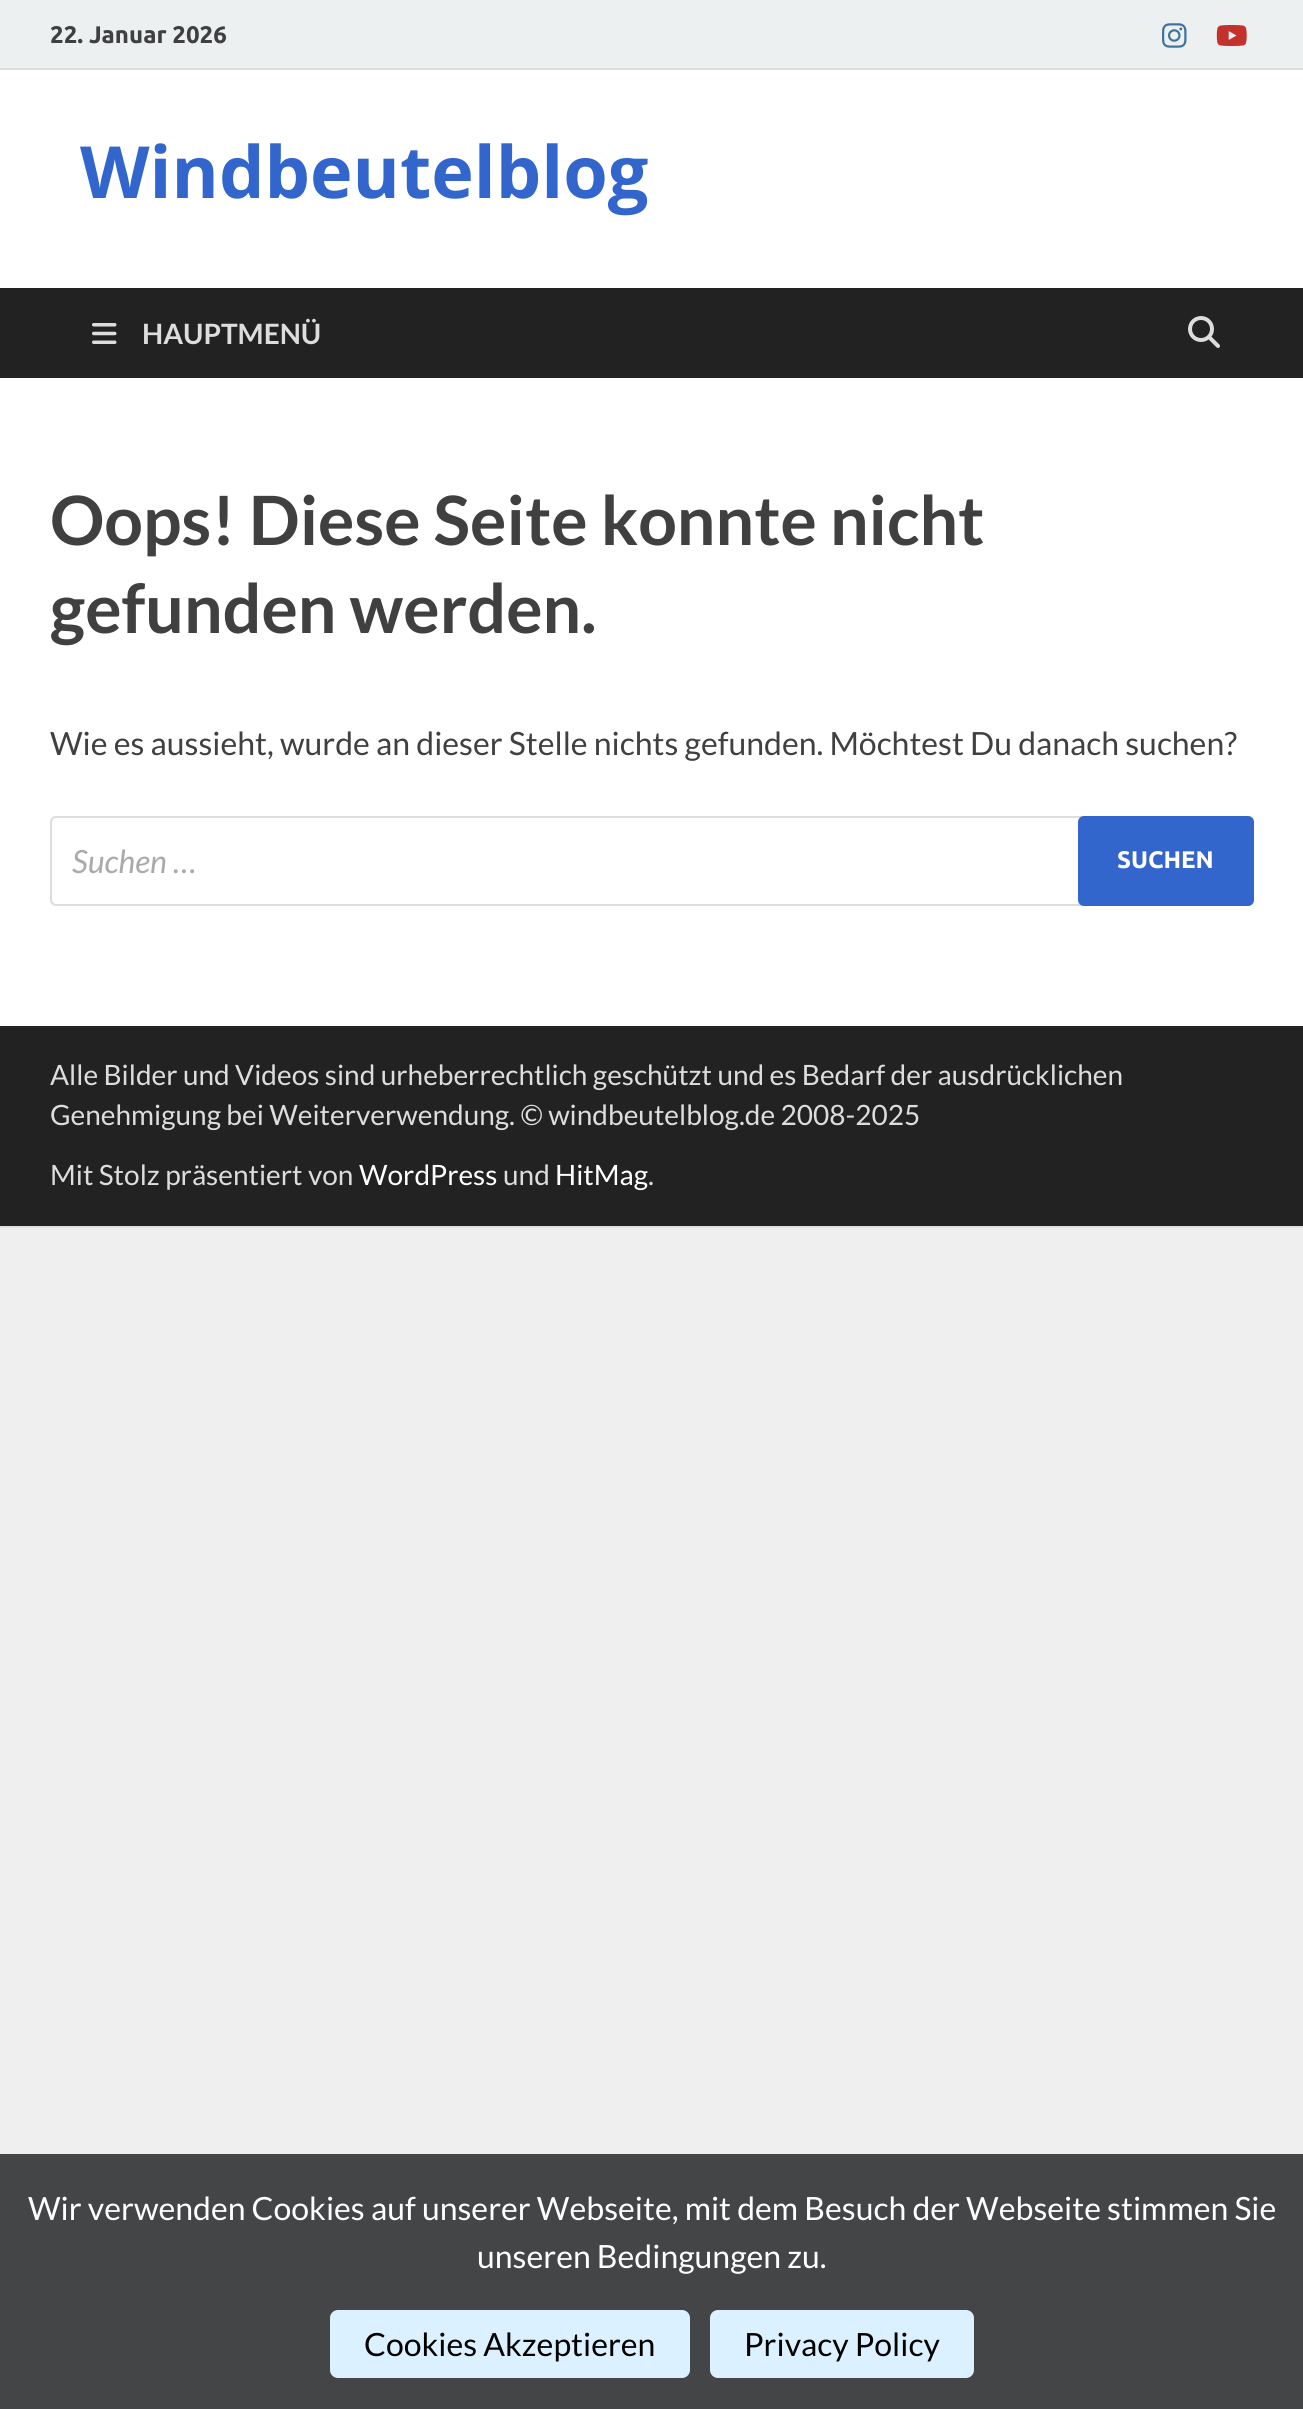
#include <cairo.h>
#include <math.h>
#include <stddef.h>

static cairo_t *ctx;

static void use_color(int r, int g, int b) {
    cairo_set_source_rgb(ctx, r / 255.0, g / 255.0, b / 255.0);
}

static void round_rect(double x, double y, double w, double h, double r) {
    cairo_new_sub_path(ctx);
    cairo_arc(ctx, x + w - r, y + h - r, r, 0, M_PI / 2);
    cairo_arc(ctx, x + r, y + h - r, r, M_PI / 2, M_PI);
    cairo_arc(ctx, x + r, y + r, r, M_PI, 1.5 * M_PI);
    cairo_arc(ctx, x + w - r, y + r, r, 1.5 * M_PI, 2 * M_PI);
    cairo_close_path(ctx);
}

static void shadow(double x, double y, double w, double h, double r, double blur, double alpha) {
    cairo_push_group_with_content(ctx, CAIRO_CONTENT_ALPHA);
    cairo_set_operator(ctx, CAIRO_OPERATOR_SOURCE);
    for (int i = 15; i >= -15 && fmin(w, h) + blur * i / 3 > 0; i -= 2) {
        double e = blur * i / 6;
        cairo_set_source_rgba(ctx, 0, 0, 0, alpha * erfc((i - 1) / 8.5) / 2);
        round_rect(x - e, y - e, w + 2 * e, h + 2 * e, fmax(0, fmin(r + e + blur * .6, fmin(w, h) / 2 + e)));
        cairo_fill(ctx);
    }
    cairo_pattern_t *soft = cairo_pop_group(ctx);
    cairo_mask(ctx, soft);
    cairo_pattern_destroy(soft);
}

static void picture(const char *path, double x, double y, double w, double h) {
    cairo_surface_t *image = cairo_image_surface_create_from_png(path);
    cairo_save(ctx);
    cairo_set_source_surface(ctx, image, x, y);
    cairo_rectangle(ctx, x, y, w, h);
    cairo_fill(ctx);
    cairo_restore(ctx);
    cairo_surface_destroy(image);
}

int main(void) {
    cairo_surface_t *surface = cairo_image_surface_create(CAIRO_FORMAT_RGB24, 1303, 2409);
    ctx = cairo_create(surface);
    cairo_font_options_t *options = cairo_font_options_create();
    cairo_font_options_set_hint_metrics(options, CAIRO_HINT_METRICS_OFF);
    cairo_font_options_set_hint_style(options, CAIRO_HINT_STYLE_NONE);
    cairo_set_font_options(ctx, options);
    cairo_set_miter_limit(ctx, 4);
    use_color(239, 239, 239);
    cairo_paint(ctx);
    use_color(187, 187, 187);
    shadow(0, 0, 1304, 1226, 0, 2, 1);
    use_color(255, 255, 255);
    cairo_rectangle(ctx, 0, 70, 1303, 956);
    cairo_fill(ctx);
    use_color(236, 240, 241);
    cairo_rectangle(ctx, 0, 0, 1303, 68);
    cairo_fill(ctx);
    use_color(221, 221, 221);
    cairo_rectangle(ctx, 0, 68, 1303, 2);
    cairo_fill(ctx);
    cairo_select_font_face(ctx, "Ubuntu", CAIRO_FONT_SLANT_NORMAL, CAIRO_FONT_WEIGHT_BOLD);
    cairo_set_font_size(ctx, 24);
    use_color(64, 64, 64);
    cairo_move_to(ctx, 50, 43);
    cairo_show_text(ctx, "22. Januar 2026");
    picture("img1.png", 1162, 23, 25, 25);
    picture("img2.png", 1216, 25, 31, 21);
    cairo_select_font_face(ctx, "Open Sans", CAIRO_FONT_SLANT_NORMAL, CAIRO_FONT_WEIGHT_BOLD);
    cairo_set_font_size(ctx, 72);
    use_color(51, 102, 204);
    cairo_move_to(ctx, 80, 198);
    cairo_show_text(ctx, "Windbeutelblog");
    use_color(34, 34, 34);
    cairo_rectangle(ctx, 0, 288, 1303, 90);
    cairo_fill(ctx);
    picture("img3.png", 92, 323, 25, 21);
    cairo_select_font_face(ctx, "Lato", CAIRO_FONT_SLANT_NORMAL, CAIRO_FONT_WEIGHT_BOLD);
    cairo_set_font_size(ctx, 28);
    use_color(221, 221, 221);
    cairo_move_to(ctx, 142, 344);
    cairo_show_text(ctx, "HAUPTMENÜ");
    picture("img4.png", 1188, 316, 32, 32);
    cairo_set_font_size(ctx, 68);
    use_color(64, 64, 64);
    cairo_move_to(ctx, 50, 545);
    cairo_show_text(ctx, "Oops! Diese Seite konnte nicht");
    cairo_move_to(ctx, 50, 633);
    cairo_show_text(ctx, "gefunden werden.");
    cairo_select_font_face(ctx, "Lato", CAIRO_FONT_SLANT_NORMAL, CAIRO_FONT_WEIGHT_NORMAL);
    cairo_set_font_size(ctx, 32);
    cairo_move_to(ctx, 50, 755);
    cairo_show_text(ctx, "Wie es aussieht, wurde an dieser Stelle nichts gefunden. Möchtest Du danach suchen?");
    round_rect(51, 817, 1202, 88, 5);
    use_color(221, 221, 221);
    cairo_stroke(ctx);
    cairo_select_font_face(ctx, "Lato", CAIRO_FONT_SLANT_ITALIC, CAIRO_FONT_WEIGHT_NORMAL);
    use_color(170, 170, 170);
    cairo_move_to(ctx, 72, 873);
    cairo_show_text(ctx, "Suchen …");
    use_color(51, 102, 204);
    round_rect(1078, 816, 176, 90, 6);
    cairo_fill(ctx);
    cairo_select_font_face(ctx, "Ubuntu", CAIRO_FONT_SLANT_NORMAL, CAIRO_FONT_WEIGHT_BOLD);
    cairo_set_font_size(ctx, 24);
    use_color(255, 255, 255);
    cairo_move_to(ctx, 1117, 868);
    cairo_show_text(ctx, "SUCHEN");
    use_color(34, 34, 34);
    cairo_rectangle(ctx, 0, 1026, 1303, 200);
    cairo_fill(ctx);
    cairo_select_font_face(ctx, "Lato", CAIRO_FONT_SLANT_NORMAL, CAIRO_FONT_WEIGHT_NORMAL);
    cairo_set_font_size(ctx, 28);
    use_color(221, 221, 221);
    cairo_move_to(ctx, 50, 1085);
    cairo_show_text(ctx, "Alle Bilder und Videos sind urheberrechtlich geschützt und es Bedarf der ausdrücklichen");
    cairo_move_to(ctx, 50, 1125);
    cairo_show_text(ctx, "Genehmigung bei Weiterverwendung. © windbeutelblog.de 2008-2025");
    cairo_move_to(ctx, 50, 1185);
    cairo_show_text(ctx, "Mit Stolz präsentiert von");
    use_color(255, 255, 255);
    cairo_move_to(ctx, 359, 1185);
    cairo_show_text(ctx, "WordPress");
    use_color(221, 221, 221);
    cairo_move_to(ctx, 503, 1185);
    cairo_show_text(ctx, "und");
    use_color(255, 255, 255);
    cairo_move_to(ctx, 555, 1185);
    cairo_show_text(ctx, "HitMag");
    use_color(221, 221, 221);
    cairo_move_to(ctx, 648, 1185);
    cairo_show_text(ctx, ".");
    use_color(68, 69, 70);
    cairo_rectangle(ctx, 0, 2154, 1303, 255);
    cairo_fill(ctx);
    cairo_set_font_size(ctx, 32);
    use_color(255, 255, 255);
    cairo_move_to(ctx, 28, 2220);
    cairo_show_text(ctx, "Wir verwenden Cookies auf unserer Webseite, mit dem Besuch der Webseite stimmen Sie");
    cairo_move_to(ctx, 477, 2268);
    cairo_show_text(ctx, "unseren Bedingungen zu.");
    use_color(220, 241, 255);
    round_rect(330, 2310, 360, 68, 8);
    cairo_fill(ctx);
    use_color(0, 0, 0);
    cairo_move_to(ctx, 364, 2356);
    cairo_show_text(ctx, "Cookies Akzeptieren");
    use_color(220, 241, 255);
    round_rect(710, 2310, 264, 68, 8);
    cairo_fill(ctx);
    use_color(0, 0, 0);
    cairo_move_to(ctx, 744, 2356);
    cairo_show_text(ctx, "Privacy Policy");
    cairo_surface_write_to_png(surface, "result.png");
    cairo_font_options_destroy(options);
    cairo_destroy(ctx);
    cairo_surface_destroy(surface);
    return 0;
}
